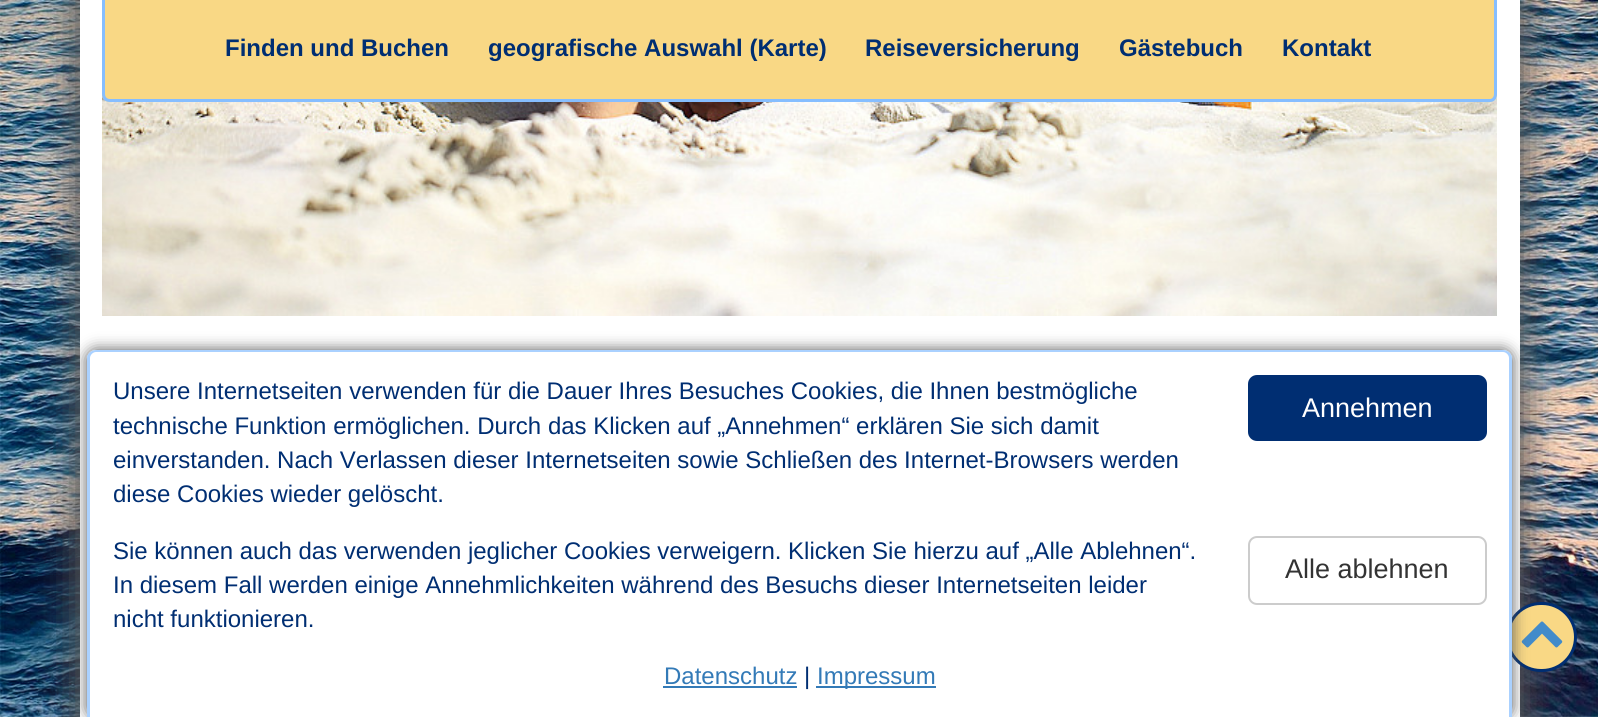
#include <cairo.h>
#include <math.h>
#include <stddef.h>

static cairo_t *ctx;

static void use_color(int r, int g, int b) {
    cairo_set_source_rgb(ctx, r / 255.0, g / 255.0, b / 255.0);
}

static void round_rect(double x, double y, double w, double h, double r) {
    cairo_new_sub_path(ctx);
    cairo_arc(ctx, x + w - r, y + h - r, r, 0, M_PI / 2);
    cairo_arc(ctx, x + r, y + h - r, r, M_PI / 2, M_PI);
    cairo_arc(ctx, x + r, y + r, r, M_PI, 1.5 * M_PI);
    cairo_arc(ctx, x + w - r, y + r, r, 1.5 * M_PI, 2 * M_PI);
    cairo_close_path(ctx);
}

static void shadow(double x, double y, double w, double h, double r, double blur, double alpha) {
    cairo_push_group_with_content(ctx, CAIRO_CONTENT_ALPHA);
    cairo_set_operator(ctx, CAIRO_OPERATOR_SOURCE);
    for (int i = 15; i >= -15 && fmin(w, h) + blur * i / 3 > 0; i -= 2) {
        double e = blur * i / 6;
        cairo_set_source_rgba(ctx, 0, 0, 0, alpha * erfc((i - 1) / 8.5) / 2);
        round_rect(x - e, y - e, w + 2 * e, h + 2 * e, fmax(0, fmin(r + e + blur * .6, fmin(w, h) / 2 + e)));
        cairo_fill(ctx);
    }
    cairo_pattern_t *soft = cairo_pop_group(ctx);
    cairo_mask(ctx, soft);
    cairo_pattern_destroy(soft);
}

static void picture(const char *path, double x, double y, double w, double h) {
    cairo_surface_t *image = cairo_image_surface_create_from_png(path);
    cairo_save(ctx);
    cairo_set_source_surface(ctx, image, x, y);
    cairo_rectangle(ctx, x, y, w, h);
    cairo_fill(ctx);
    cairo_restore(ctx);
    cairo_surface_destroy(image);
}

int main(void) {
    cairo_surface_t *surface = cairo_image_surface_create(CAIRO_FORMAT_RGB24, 1598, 717);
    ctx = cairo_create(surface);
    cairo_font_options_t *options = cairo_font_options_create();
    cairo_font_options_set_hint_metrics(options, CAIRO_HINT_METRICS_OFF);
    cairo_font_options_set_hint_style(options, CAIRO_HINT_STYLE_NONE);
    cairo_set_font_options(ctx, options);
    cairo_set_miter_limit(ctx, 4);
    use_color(255, 255, 255);
    cairo_paint(ctx);
    picture("img1.png", 0, 0, 1598, 717);
    use_color(85, 85, 85);
    shadow(72, -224, 1455, 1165, 167, 19, 1);
    use_color(255, 255, 255);
    cairo_rectangle(ctx, 80, 0, 1440, 717);
    cairo_fill(ctx);
    picture("img2.png", 102, 94, 1395, 222);
    use_color(249, 216, 133);
    cairo_new_path(ctx);
    cairo_move_to(ctx, 102, 0);
    cairo_line_to(ctx, 1497, 0);
    cairo_line_to(ctx, 1497, 94);
    cairo_curve_to(ctx, 1497, 98.5, 1493.5, 102, 1489, 102);
    cairo_line_to(ctx, 110, 102);
    cairo_curve_to(ctx, 105.5, 102, 102, 98.5, 102, 94);
    cairo_close_path(ctx);
    cairo_fill(ctx);
    use_color(134, 190, 255);
    cairo_set_fill_rule(ctx, CAIRO_FILL_RULE_EVEN_ODD);
    cairo_new_path(ctx);
    cairo_move_to(ctx, 102, 0);
    cairo_line_to(ctx, 1497, 0);
    cairo_line_to(ctx, 1497, 94);
    cairo_curve_to(ctx, 1497, 99, 1494, 102, 1490, 102);
    cairo_line_to(ctx, 110, 102);
    cairo_curve_to(ctx, 105, 102, 102, 99, 102, 94);
    cairo_close_path(ctx);
    cairo_move_to(ctx, 105, 0);
    cairo_line_to(ctx, 1494, 0);
    cairo_line_to(ctx, 1494, 94);
    cairo_curve_to(ctx, 1494, 97, 1492, 99, 1490, 99);
    cairo_line_to(ctx, 110, 99);
    cairo_curve_to(ctx, 107, 99, 105, 97, 105, 94);
    cairo_close_path(ctx);
    cairo_fill(ctx);
    cairo_select_font_face(ctx, "Liberation Sans", CAIRO_FONT_SLANT_NORMAL, CAIRO_FONT_WEIGHT_BOLD);
    cairo_set_font_size(ctx, 24);
    use_color(0, 46, 114);
    cairo_move_to(ctx, 225, 56);
    cairo_show_text(ctx, "Finden und Buchen");
    cairo_move_to(ctx, 488, 56);
    cairo_show_text(ctx, "geografische Auswahl (Karte)");
    cairo_move_to(ctx, 865, 56);
    cairo_show_text(ctx, "Reiseversicherung");
    cairo_move_to(ctx, 1119, 56);
    cairo_show_text(ctx, "Gästebuch");
    cairo_move_to(ctx, 1282, 56);
    cairo_show_text(ctx, "Kontakt");
    use_color(249, 216, 133);
    round_rect(1507.5, 603.5, 68, 67, 33.5);
    cairo_fill_preserve(ctx);
    use_color(0, 46, 114);
    cairo_set_line_width(ctx, 3);
    cairo_stroke(ctx);
    picture("img3.png", 1521, 621, 42, 27);
    use_color(85, 85, 85);
    shadow(87, 350, 1425, 367, 9, 7.5, 1);
    use_color(255, 255, 255);
    cairo_new_path(ctx);
    cairo_move_to(ctx, 96, 350);
    cairo_line_to(ctx, 1503, 350);
    cairo_curve_to(ctx, 1508, 350, 1512, 354, 1512, 359);
    cairo_line_to(ctx, 1512, 717);
    cairo_line_to(ctx, 87, 717);
    cairo_line_to(ctx, 87, 359);
    cairo_curve_to(ctx, 87, 354, 91, 350, 96, 350);
    cairo_close_path(ctx);
    cairo_fill(ctx);
    use_color(170, 209, 255);
    cairo_new_path(ctx);
    cairo_move_to(ctx, 96, 350);
    cairo_line_to(ctx, 1503, 350);
    cairo_curve_to(ctx, 1508, 350, 1512, 354, 1512, 358);
    cairo_line_to(ctx, 1512, 717);
    cairo_line_to(ctx, 87, 717);
    cairo_line_to(ctx, 87, 358);
    cairo_curve_to(ctx, 87, 354, 91, 350, 96, 350);
    cairo_close_path(ctx);
    cairo_move_to(ctx, 96, 352);
    cairo_line_to(ctx, 1503, 352);
    cairo_curve_to(ctx, 1506, 352, 1509, 355, 1509, 358);
    cairo_line_to(ctx, 1509, 717);
    cairo_line_to(ctx, 90, 717);
    cairo_line_to(ctx, 90, 358);
    cairo_curve_to(ctx, 90, 355, 93, 352, 96, 352);
    cairo_close_path(ctx);
    cairo_fill(ctx);
    cairo_select_font_face(ctx, "Liberation Sans", CAIRO_FONT_SLANT_NORMAL, CAIRO_FONT_WEIGHT_NORMAL);
    use_color(0, 46, 114);
    cairo_move_to(ctx, 113, 399);
    cairo_show_text(ctx, "Unsere Internetseiten verwenden für die Dauer Ihres Besuches Cookies, die Ihnen bestmögliche");
    cairo_move_to(ctx, 113, 434);
    cairo_show_text(ctx, "technische Funktion ermöglichen. Durch das Klicken auf „Annehmen“ erklären Sie sich damit");
    cairo_move_to(ctx, 113, 468);
    cairo_show_text(ctx, "einverstanden. Nach Verlassen dieser Internetseiten sowie Schließen des Internet-Browsers werden");
    cairo_move_to(ctx, 113, 502);
    cairo_show_text(ctx, "diese Cookies wieder gelöscht.");
    round_rect(1248, 375, 239, 66, 9);
    cairo_fill(ctx);
    cairo_set_font_size(ctx, 27);
    use_color(255, 255, 255);
    cairo_move_to(ctx, 1302, 417);
    cairo_show_text(ctx, "Annehmen");
    cairo_set_font_size(ctx, 24);
    use_color(0, 46, 114);
    cairo_move_to(ctx, 113, 559);
    cairo_show_text(ctx, "Sie können auch das verwenden jeglicher Cookies verweigern. Klicken Sie hierzu auf „Alle Ablehnen“.");
    cairo_move_to(ctx, 113, 593);
    cairo_show_text(ctx, "In diesem Fall werden einige Annehmlichkeiten während des Besuchs dieser Internetseiten leider");
    cairo_move_to(ctx, 113, 627);
    cairo_show_text(ctx, "nicht funktionieren.");
    round_rect(1249, 537, 237, 67, 8);
    use_color(204, 204, 204);
    cairo_set_line_width(ctx, 2);
    cairo_stroke(ctx);
    cairo_set_font_size(ctx, 27);
    use_color(51, 51, 51);
    cairo_move_to(ctx, 1285, 578);
    cairo_show_text(ctx, "Alle ablehnen");
    cairo_set_font_size(ctx, 24);
    use_color(51, 122, 183);
    cairo_move_to(ctx, 664, 684);
    cairo_show_text(ctx, "Datenschutz");
    cairo_rectangle(ctx, 663, 686, 134, 2);
    cairo_fill(ctx);
    use_color(0, 46, 114);
    cairo_move_to(ctx, 804, 684);
    cairo_show_text(ctx, "|");
    use_color(51, 122, 183);
    cairo_rectangle(ctx, 816, 686, 120, 2);
    cairo_fill(ctx);
    cairo_move_to(ctx, 817, 684);
    cairo_show_text(ctx, "Impressum");
    cairo_surface_write_to_png(surface, "result.png");
    cairo_font_options_destroy(options);
    cairo_destroy(ctx);
    cairo_surface_destroy(surface);
    return 0;
}
